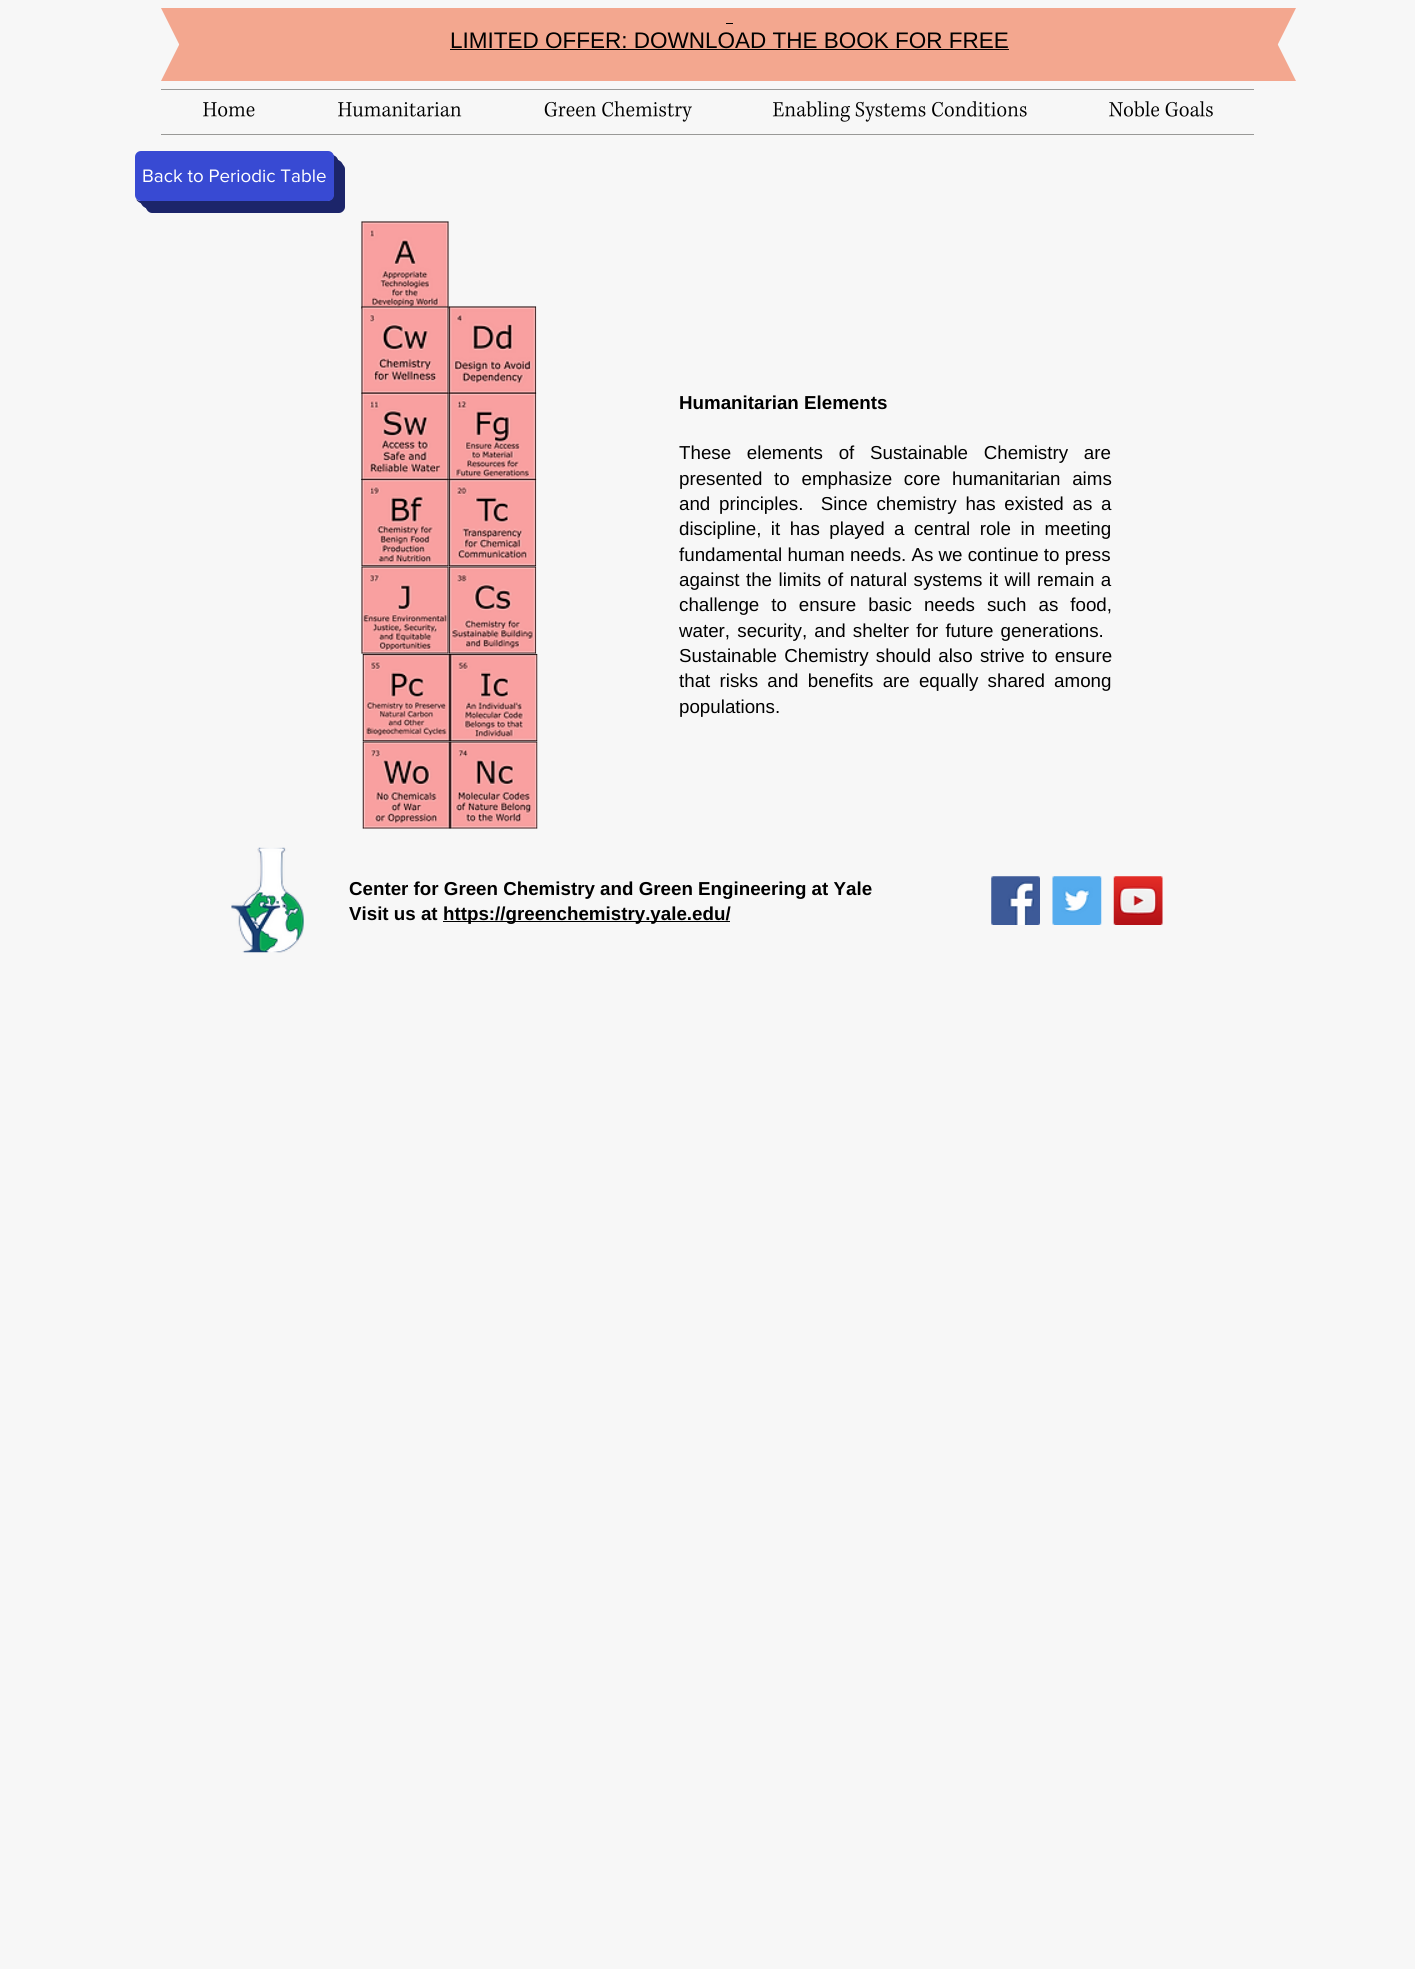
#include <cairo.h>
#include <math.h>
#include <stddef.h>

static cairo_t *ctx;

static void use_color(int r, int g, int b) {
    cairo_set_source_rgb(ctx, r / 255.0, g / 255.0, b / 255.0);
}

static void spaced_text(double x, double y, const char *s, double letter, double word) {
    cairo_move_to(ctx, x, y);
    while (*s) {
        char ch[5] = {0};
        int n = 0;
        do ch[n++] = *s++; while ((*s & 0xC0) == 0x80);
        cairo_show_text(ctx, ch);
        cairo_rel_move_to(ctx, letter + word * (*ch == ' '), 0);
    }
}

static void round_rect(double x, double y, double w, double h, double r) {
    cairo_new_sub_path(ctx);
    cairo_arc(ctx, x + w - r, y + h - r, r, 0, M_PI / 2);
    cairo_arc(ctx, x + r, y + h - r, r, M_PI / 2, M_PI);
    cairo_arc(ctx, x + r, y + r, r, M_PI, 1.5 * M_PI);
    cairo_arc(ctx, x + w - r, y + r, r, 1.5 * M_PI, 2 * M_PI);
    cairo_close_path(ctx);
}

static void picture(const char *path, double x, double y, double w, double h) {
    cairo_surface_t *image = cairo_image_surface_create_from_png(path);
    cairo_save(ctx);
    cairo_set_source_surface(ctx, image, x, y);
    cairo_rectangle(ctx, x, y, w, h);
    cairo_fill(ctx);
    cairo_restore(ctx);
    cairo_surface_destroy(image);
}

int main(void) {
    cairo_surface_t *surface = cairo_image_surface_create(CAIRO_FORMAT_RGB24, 1415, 1969);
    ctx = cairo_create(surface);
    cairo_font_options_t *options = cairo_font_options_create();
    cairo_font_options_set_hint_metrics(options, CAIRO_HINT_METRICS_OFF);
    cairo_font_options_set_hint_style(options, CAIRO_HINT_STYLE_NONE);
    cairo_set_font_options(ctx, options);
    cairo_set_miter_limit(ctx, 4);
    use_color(247, 247, 247);
    cairo_paint(ctx);
    cairo_save(ctx);
    cairo_rectangle(ctx, 161, 8, 569, 37);
    cairo_clip(ctx);
    use_color(243, 167, 143);
    cairo_new_path(ctx);
    cairo_move_to(ctx, 161, 8);
    cairo_line_to(ctx, 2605, 8);
    cairo_line_to(ctx, 1355, 1258);
    cairo_line_to(ctx, 786, 1258);
    cairo_close_path(ctx);
    cairo_fill(ctx);
    cairo_restore(ctx);
    cairo_save(ctx);
    cairo_rectangle(ctx, 729, 8, 567, 37);
    cairo_clip(ctx);
    use_color(243, 167, 143);
    cairo_new_path(ctx);
    cairo_move_to(ctx, -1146, 8);
    cairo_line_to(ctx, 1296, 8);
    cairo_line_to(ctx, 671, 1258);
    cairo_line_to(ctx, 104, 1258);
    cairo_close_path(ctx);
    cairo_fill(ctx);
    cairo_restore(ctx);
    cairo_save(ctx);
    cairo_rectangle(ctx, 161, 44, 569, 37);
    cairo_clip(ctx);
    use_color(243, 167, 143);
    cairo_new_path(ctx);
    cairo_move_to(ctx, 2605, 81);
    cairo_line_to(ctx, 161, 81);
    cairo_line_to(ctx, 786, -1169);
    cairo_line_to(ctx, 1355, -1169);
    cairo_close_path(ctx);
    cairo_fill(ctx);
    cairo_restore(ctx);
    cairo_save(ctx);
    cairo_rectangle(ctx, 729, 44, 567, 37);
    cairo_clip(ctx);
    use_color(243, 167, 143);
    cairo_new_path(ctx);
    cairo_move_to(ctx, 1296, 81);
    cairo_line_to(ctx, -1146, 81);
    cairo_line_to(ctx, 104, -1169);
    cairo_line_to(ctx, 671, -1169);
    cairo_close_path(ctx);
    cairo_fill(ctx);
    cairo_restore(ctx);
    cairo_select_font_face(ctx, "Liberation Sans", CAIRO_FONT_SLANT_NORMAL, CAIRO_FONT_WEIGHT_NORMAL);
    cairo_set_font_size(ctx, 22.5);
    use_color(0, 0, 0);
    cairo_move_to(ctx, 450, 48);
    cairo_show_text(ctx, "LIMITED OFFER: DOWNLOAD THE BOOK FOR FREE");
    cairo_rectangle(ctx, 726, 23, 7, 1);
    cairo_fill(ctx);
    cairo_rectangle(ctx, 450, 49, 559, 1);
    cairo_fill(ctx);
    use_color(153, 153, 151);
    cairo_rectangle(ctx, 161, 89, 1093, 1);
    cairo_fill(ctx);
    cairo_rectangle(ctx, 161, 134, 1093, 1);
    cairo_fill(ctx);
    picture("img1.png", 203, 102, 52, 15);
    picture("img2.png", 338, 102, 124, 15);
    picture("img3.png", 544, 101, 148, 21);
    picture("img4.png", 772, 101, 255, 21);
    picture("img5.png", 1109, 101, 104, 16);
    use_color(28, 37, 106);
    cairo_new_path(ctx);
    cairo_move_to(ctx, 146, 201);
    cairo_line_to(ctx, 146, 207);
    cairo_curve_to(ctx, 146, 210, 149, 213, 152, 213);
    cairo_line_to(ctx, 339, 213);
    cairo_curve_to(ctx, 342, 213, 345, 210, 345, 207);
    cairo_line_to(ctx, 345, 169);
    cairo_curve_to(ctx, 345, 166, 342, 163, 339, 163);
    cairo_line_to(ctx, 334, 163);
    cairo_line_to(ctx, 334, 195);
    cairo_curve_to(ctx, 334, 198, 331, 201, 328, 201);
    cairo_close_path(ctx);
    cairo_fill(ctx);
    cairo_new_path(ctx);
    cairo_move_to(ctx, 144, 201);
    cairo_line_to(ctx, 144, 204);
    cairo_curve_to(ctx, 144, 207, 147, 210, 150, 210);
    cairo_line_to(ctx, 337, 210);
    cairo_curve_to(ctx, 340, 210, 343, 207, 343, 204);
    cairo_line_to(ctx, 343, 166);
    cairo_curve_to(ctx, 343, 163, 340, 160, 337, 160);
    cairo_line_to(ctx, 334, 160);
    cairo_line_to(ctx, 334, 195);
    cairo_curve_to(ctx, 334, 198, 331, 201, 328, 201);
    cairo_close_path(ctx);
    cairo_fill(ctx);
    cairo_new_path(ctx);
    cairo_move_to(ctx, 141, 201);
    cairo_line_to(ctx, 141, 202);
    cairo_curve_to(ctx, 141, 205, 144, 208, 147, 208);
    cairo_line_to(ctx, 334, 208);
    cairo_curve_to(ctx, 337, 208, 340, 205, 340, 202);
    cairo_line_to(ctx, 340, 164);
    cairo_curve_to(ctx, 340, 161, 337, 158, 334, 158);
    cairo_line_to(ctx, 334, 183);
    cairo_curve_to(ctx, 334, 188, 336, 201, 328, 201);
    cairo_close_path(ctx);
    cairo_fill(ctx);
    cairo_new_path(ctx);
    cairo_move_to(ctx, 139, 201);
    cairo_curve_to(ctx, 140, 203, 142, 205, 145, 205);
    cairo_line_to(ctx, 332, 205);
    cairo_curve_to(ctx, 335, 205, 338, 202, 338, 199);
    cairo_line_to(ctx, 338, 161);
    cairo_curve_to(ctx, 338, 158, 336, 156, 333, 155);
    cairo_line_to(ctx, 334, 182);
    cairo_curve_to(ctx, 334, 188, 336, 201, 328, 201);
    cairo_close_path(ctx);
    cairo_fill(ctx);
    cairo_new_path(ctx);
    cairo_move_to(ctx, 136, 199);
    cairo_curve_to(ctx, 137, 201, 139, 203, 142, 203);
    cairo_line_to(ctx, 329, 203);
    cairo_curve_to(ctx, 332, 203, 335, 200, 335, 197);
    cairo_line_to(ctx, 335, 159);
    cairo_curve_to(ctx, 335, 157, 334, 156, 333, 155);
    cairo_line_to(ctx, 334, 158);
    cairo_line_to(ctx, 334, 195);
    cairo_curve_to(ctx, 334, 198, 331, 201, 328, 201);
    cairo_line_to(ctx, 141, 201);
    cairo_curve_to(ctx, 139, 201, 137, 200, 136, 199);
    cairo_close_path(ctx);
    cairo_fill(ctx);
    use_color(56, 74, 211);
    round_rect(135, 151, 199, 50, 6);
    cairo_fill(ctx);
    cairo_select_font_face(ctx, "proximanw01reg", CAIRO_FONT_SLANT_NORMAL, CAIRO_FONT_WEIGHT_NORMAL);
    cairo_set_font_size(ctx, 18.75);
    use_color(255, 255, 255);
    cairo_move_to(ctx, 142, 182);
    cairo_show_text(ctx, "Back to Periodic Table");
    picture("img6.png", 361, 221, 88, 88);
    picture("img7.png", 361, 306, 88, 88);
    picture("img8.png", 448, 306, 89, 88);
    picture("img9.png", 361, 392, 88, 88);
    picture("img10.png", 448, 392, 89, 88);
    cairo_select_font_face(ctx, "Liberation Sans", CAIRO_FONT_SLANT_NORMAL, CAIRO_FONT_WEIGHT_BOLD);
    use_color(0, 0, 0);
    cairo_move_to(ctx, 679, 409);
    cairo_show_text(ctx, "Humanitarian Elements");
    cairo_select_font_face(ctx, "Liberation Sans", CAIRO_FONT_SLANT_NORMAL, CAIRO_FONT_WEIGHT_NORMAL);
    spaced_text(679, 459, "These elements of Sustainable Chemistry are", 0, 10.5);
    spaced_text(679, 485, "presented to emphasize core humanitarian aims", 0, 6.5);
    spaced_text(679, 510, "and principles.  Since chemistry has existed as a", 0, 3.5);
    spaced_text(679, 535, "discipline, it has played a central role in meeting", 0, 4.25);
    cairo_move_to(ctx, 679, 561);
    cairo_show_text(ctx, "fundamental human needs. As we continue to press");
    spaced_text(679, 586, "against the limits of natural systems it will remain a", 0, 1.25);
    spaced_text(679, 611, "challenge to ensure basic needs such as food,", 0, 6.75);
    spaced_text(679, 637, "water, security, and shelter for future generations.", 0, 2);
    spaced_text(679, 662, "Sustainable Chemistry should also strive to ensure", 0, 2);
    spaced_text(679, 687, "that risks and benefits are equally shared among", 0, 4);
    cairo_move_to(ctx, 679, 713);
    cairo_show_text(ctx, "populations.");
    picture("img11.png", 361, 478, 88, 89);
    picture("img12.png", 448, 478, 89, 89);
    picture("img13.png", 361, 566, 88, 88);
    picture("img14.png", 448, 566, 89, 88);
    picture("img15.png", 362, 653, 88, 89);
    picture("img16.png", 450, 653, 88, 89);
    picture("img17.png", 362, 741, 88, 88);
    picture("img18.png", 450, 741, 88, 88);
    picture("img19.png", 231, 847, 73, 106);
    cairo_select_font_face(ctx, "Liberation Sans", CAIRO_FONT_SLANT_NORMAL, CAIRO_FONT_WEIGHT_BOLD);
    cairo_move_to(ctx, 349, 895);
    cairo_show_text(ctx, "Center for Green Chemistry and Green Engineering at Yale");
    cairo_move_to(ctx, 349, 920);
    cairo_show_text(ctx, "Visit us at");
    cairo_rectangle(ctx, 443, 921, 287, 1);
    cairo_fill(ctx);
    cairo_move_to(ctx, 443, 920);
    cairo_show_text(ctx, "https://greenchemistry.yale.edu/");
    picture("img20.png", 991, 876, 49, 49);
    picture("img21.png", 1052, 876, 50, 49);
    picture("img22.png", 1113, 876, 50, 49);
    cairo_surface_write_to_png(surface, "result.png");
    cairo_font_options_destroy(options);
    cairo_destroy(ctx);
    cairo_surface_destroy(surface);
    return 0;
}
